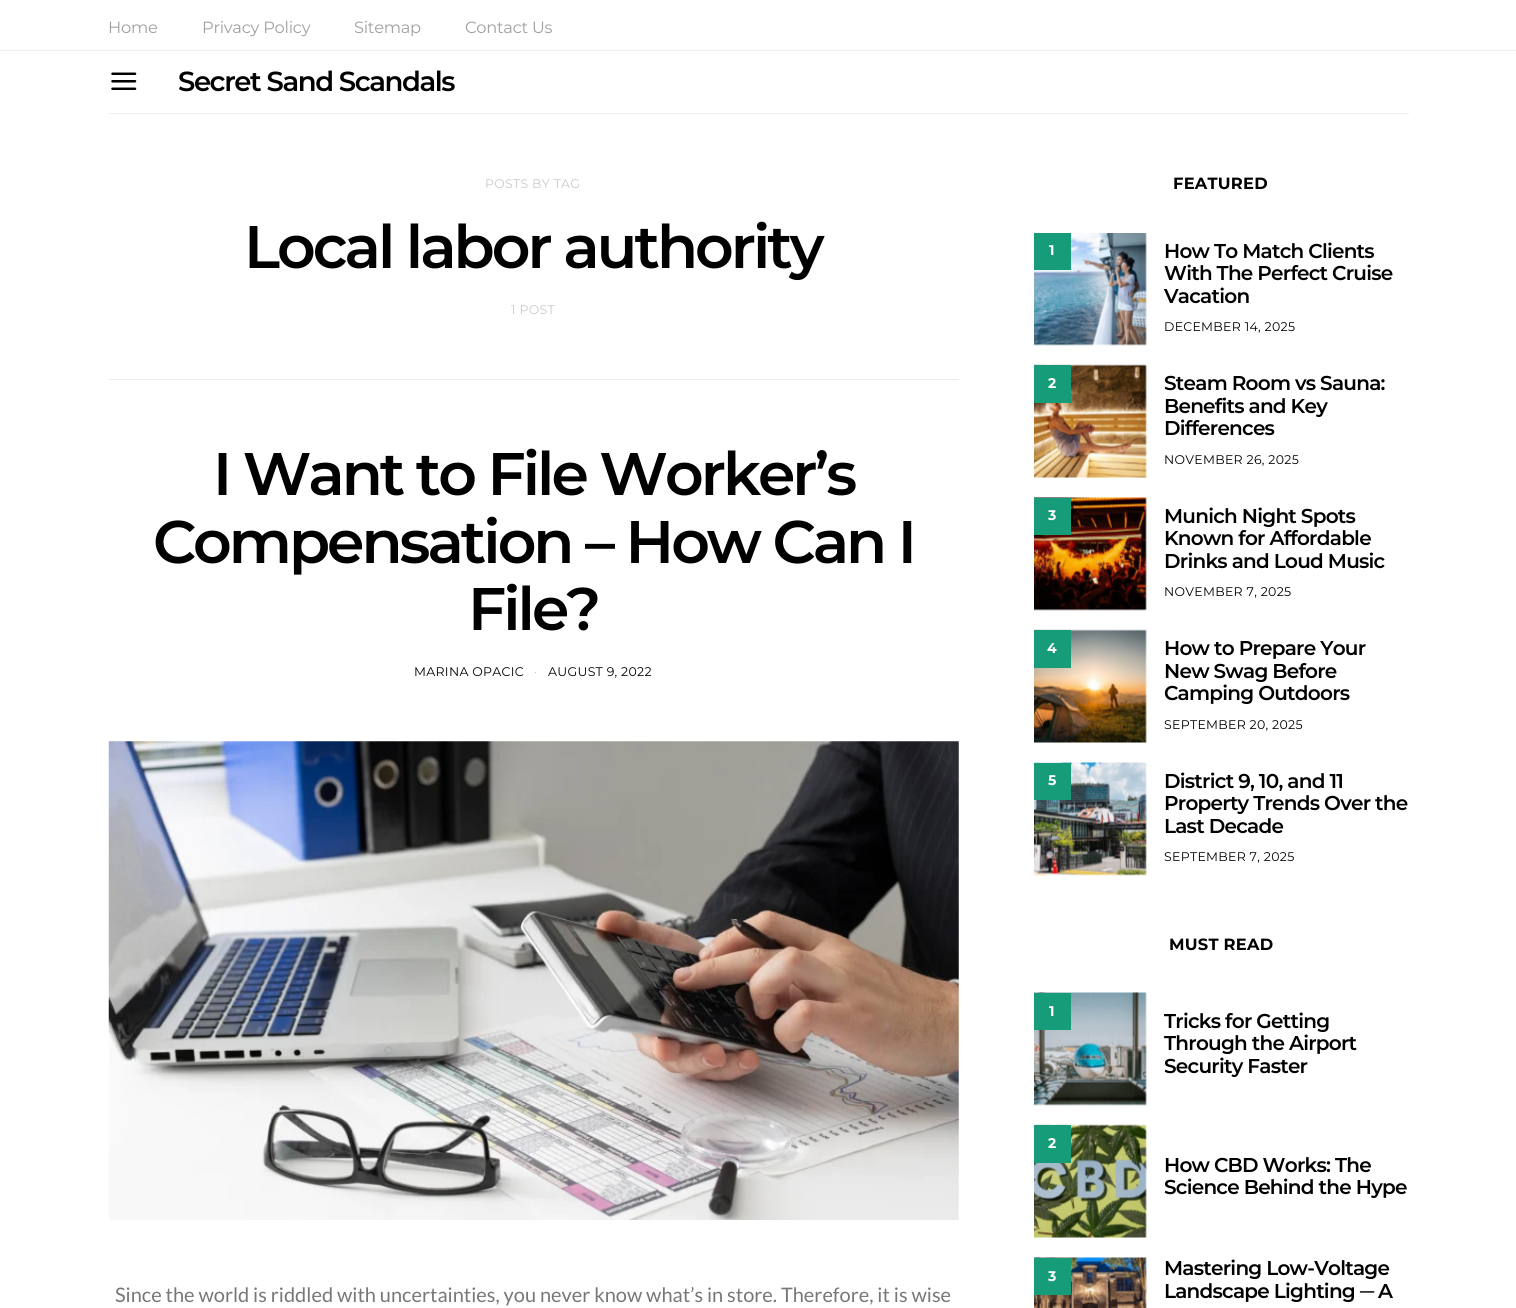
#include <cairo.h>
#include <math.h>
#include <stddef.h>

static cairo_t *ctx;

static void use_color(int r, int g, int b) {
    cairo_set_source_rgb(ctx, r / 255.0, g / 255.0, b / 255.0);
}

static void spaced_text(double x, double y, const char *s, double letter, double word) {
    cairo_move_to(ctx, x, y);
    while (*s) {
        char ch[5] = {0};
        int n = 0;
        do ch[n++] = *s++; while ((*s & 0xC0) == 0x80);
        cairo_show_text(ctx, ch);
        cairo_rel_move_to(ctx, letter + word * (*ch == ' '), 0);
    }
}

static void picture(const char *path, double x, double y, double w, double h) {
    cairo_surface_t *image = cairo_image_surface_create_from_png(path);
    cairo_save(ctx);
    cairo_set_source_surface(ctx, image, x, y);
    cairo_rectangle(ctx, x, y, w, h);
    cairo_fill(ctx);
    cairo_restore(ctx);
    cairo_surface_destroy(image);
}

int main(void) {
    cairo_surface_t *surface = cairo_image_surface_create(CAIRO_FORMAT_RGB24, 1516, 1308);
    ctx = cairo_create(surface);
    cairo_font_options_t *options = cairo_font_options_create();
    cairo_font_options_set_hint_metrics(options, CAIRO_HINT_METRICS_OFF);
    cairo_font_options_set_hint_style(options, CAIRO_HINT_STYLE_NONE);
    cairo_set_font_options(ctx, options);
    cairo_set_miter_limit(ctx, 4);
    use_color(255, 255, 255);
    cairo_paint(ctx);
    use_color(238, 238, 238);
    cairo_rectangle(ctx, 0, 50, 1516, 1);
    cairo_fill(ctx);
    cairo_select_font_face(ctx, "Montserrat", CAIRO_FONT_SLANT_NORMAL, CAIRO_FONT_WEIGHT_NORMAL);
    cairo_set_font_size(ctx, 16.25);
    use_color(160, 160, 160);
    spaced_text(108, 33, "Home", -0.25, 0);
    spaced_text(202, 33, "Privacy Policy", -0.25, 0);
    spaced_text(354, 33, "Sitemap", -0.25, 0);
    spaced_text(465, 33, "Contact Us", -0.25, 0);
    use_color(238, 238, 238);
    cairo_rectangle(ctx, 109, 113, 1300, 1);
    cairo_fill(ctx);
    picture("img1.png", 111, 72, 26, 18);
    cairo_select_font_face(ctx, "Montserrat SemiBold", CAIRO_FONT_SLANT_NORMAL, CAIRO_FONT_WEIGHT_NORMAL);
    cairo_set_font_size(ctx, 27.5);
    use_color(0, 0, 0);
    spaced_text(178, 91, "Secret Sand Scandals", -1.4, 0);
    cairo_select_font_face(ctx, "Montserrat", CAIRO_FONT_SLANT_NORMAL, CAIRO_FONT_WEIGHT_NORMAL);
    cairo_set_font_size(ctx, 12.5);
    use_color(201, 201, 201);
    spaced_text(485, 188, "POSTS BY TAG", 0.3, 0);
    cairo_select_font_face(ctx, "Montserrat SemiBold", CAIRO_FONT_SLANT_NORMAL, CAIRO_FONT_WEIGHT_NORMAL);
    cairo_set_font_size(ctx, 60);
    use_color(0, 0, 0);
    spaced_text(244, 268, "Local labor authority", -3, 0);
    cairo_select_font_face(ctx, "Montserrat", CAIRO_FONT_SLANT_NORMAL, CAIRO_FONT_WEIGHT_NORMAL);
    cairo_set_font_size(ctx, 12.5);
    use_color(201, 201, 201);
    spaced_text(511, 314, "1 POST", 0.3, 0);
    use_color(233, 236, 239);
    cairo_rectangle(ctx, 109, 379, 850, 1);
    cairo_fill(ctx);
    cairo_select_font_face(ctx, "Montserrat SemiBold", CAIRO_FONT_SLANT_NORMAL, CAIRO_FONT_WEIGHT_NORMAL);
    cairo_set_font_size(ctx, 60);
    use_color(0, 0, 0);
    spaced_text(213, 495, "I Want to File Worker’s", -3, 0);
    spaced_text(153, 563, "Compensation – How Can I", -3, 0);
    spaced_text(468, 630, "File?", -3, 0);
    cairo_select_font_face(ctx, "Montserrat", CAIRO_FONT_SLANT_NORMAL, CAIRO_FONT_WEIGHT_NORMAL);
    cairo_set_font_size(ctx, 12.5);
    spaced_text(414, 676, "MARINA OPACIC", 0.3, 0);
    use_color(201, 201, 201);
    spaced_text(534, 676, "·", 0.3, 0);
    use_color(0, 0, 0);
    spaced_text(548, 676, "AUGUST 9, 2022", 0.3, 0);
    picture("img2.png", 108, 741, 851, 479);
    cairo_select_font_face(ctx, "Lato", CAIRO_FONT_SLANT_NORMAL, CAIRO_FONT_WEIGHT_NORMAL);
    cairo_set_font_size(ctx, 20);
    use_color(119, 119, 119);
    cairo_move_to(ctx, 115, 1302);
    cairo_show_text(ctx, "Since the world is riddled with uncertainties, you never know what’s in store. Therefore, it is wise");
    cairo_select_font_face(ctx, "Montserrat", CAIRO_FONT_SLANT_NORMAL, CAIRO_FONT_WEIGHT_BOLD);
    cairo_set_font_size(ctx, 16.25);
    use_color(0, 0, 0);
    spaced_text(1173, 189, "FEATURED", 0.25, 0);
    picture("img3.png", 1034, 233, 113, 113);
    use_color(22, 156, 120);
    cairo_rectangle(ctx, 1034, 233, 37, 37);
    cairo_fill(ctx);
    cairo_set_font_size(ctx, 14);
    use_color(255, 255, 255);
    cairo_move_to(ctx, 1049, 255);
    cairo_show_text(ctx, "1");
    cairo_select_font_face(ctx, "Montserrat SemiBold", CAIRO_FONT_SLANT_NORMAL, CAIRO_FONT_WEIGHT_NORMAL);
    cairo_set_font_size(ctx, 20);
    use_color(0, 0, 0);
    spaced_text(1164, 258, "How To Match Clients", -0.75, 0);
    spaced_text(1164, 280, "With The Perfect Cruise", -0.75, 0);
    spaced_text(1164, 303, "Vacation", -0.75, 0);
    cairo_select_font_face(ctx, "Montserrat", CAIRO_FONT_SLANT_NORMAL, CAIRO_FONT_WEIGHT_NORMAL);
    cairo_set_font_size(ctx, 12.5);
    spaced_text(1164, 331, "DECEMBER 14, 2025", 0.3, 0);
    picture("img4.png", 1034, 364, 113, 114);
    use_color(22, 156, 120);
    cairo_rectangle(ctx, 1034, 365, 37, 38);
    cairo_fill(ctx);
    cairo_select_font_face(ctx, "Montserrat", CAIRO_FONT_SLANT_NORMAL, CAIRO_FONT_WEIGHT_BOLD);
    cairo_set_font_size(ctx, 14);
    use_color(255, 255, 255);
    cairo_move_to(ctx, 1048, 388);
    cairo_show_text(ctx, "2");
    cairo_select_font_face(ctx, "Montserrat SemiBold", CAIRO_FONT_SLANT_NORMAL, CAIRO_FONT_WEIGHT_NORMAL);
    cairo_set_font_size(ctx, 20);
    use_color(0, 0, 0);
    spaced_text(1164, 390, "Steam Room vs Sauna:", -0.75, 0);
    spaced_text(1164, 413, "Benefits and Key", -0.75, 0);
    spaced_text(1164, 435, "Differences", -0.75, 0);
    cairo_select_font_face(ctx, "Montserrat", CAIRO_FONT_SLANT_NORMAL, CAIRO_FONT_WEIGHT_NORMAL);
    cairo_set_font_size(ctx, 12.5);
    spaced_text(1164, 464, "NOVEMBER 26, 2025", 0.3, 0);
    picture("img5.png", 1034, 497, 113, 114);
    use_color(22, 156, 120);
    cairo_rectangle(ctx, 1034, 498, 37, 37);
    cairo_fill(ctx);
    cairo_select_font_face(ctx, "Montserrat", CAIRO_FONT_SLANT_NORMAL, CAIRO_FONT_WEIGHT_BOLD);
    cairo_set_font_size(ctx, 14);
    use_color(255, 255, 255);
    cairo_move_to(ctx, 1048, 520);
    cairo_show_text(ctx, "3");
    cairo_select_font_face(ctx, "Montserrat SemiBold", CAIRO_FONT_SLANT_NORMAL, CAIRO_FONT_WEIGHT_NORMAL);
    cairo_set_font_size(ctx, 20);
    use_color(0, 0, 0);
    spaced_text(1164, 523, "Munich Night Spots", -0.75, 0);
    spaced_text(1164, 545, "Known for Affordable", -0.75, 0);
    spaced_text(1164, 568, "Drinks and Loud Music", -0.75, 0);
    cairo_select_font_face(ctx, "Montserrat", CAIRO_FONT_SLANT_NORMAL, CAIRO_FONT_WEIGHT_NORMAL);
    cairo_set_font_size(ctx, 12.5);
    spaced_text(1164, 596, "NOVEMBER 7, 2025", 0.3, 0);
    picture("img6.png", 1034, 629, 113, 114);
    use_color(22, 156, 120);
    cairo_rectangle(ctx, 1034, 630, 37, 38);
    cairo_fill(ctx);
    cairo_select_font_face(ctx, "Montserrat", CAIRO_FONT_SLANT_NORMAL, CAIRO_FONT_WEIGHT_BOLD);
    cairo_set_font_size(ctx, 14);
    use_color(255, 255, 255);
    cairo_move_to(ctx, 1047, 653);
    cairo_show_text(ctx, "4");
    cairo_select_font_face(ctx, "Montserrat SemiBold", CAIRO_FONT_SLANT_NORMAL, CAIRO_FONT_WEIGHT_NORMAL);
    cairo_set_font_size(ctx, 20);
    use_color(0, 0, 0);
    spaced_text(1164, 655, "How to Prepare Your", -0.75, 0);
    spaced_text(1164, 678, "New Swag Before", -0.75, 0);
    spaced_text(1164, 700, "Camping Outdoors", -0.75, 0);
    cairo_select_font_face(ctx, "Montserrat", CAIRO_FONT_SLANT_NORMAL, CAIRO_FONT_WEIGHT_NORMAL);
    cairo_set_font_size(ctx, 12.5);
    spaced_text(1164, 729, "SEPTEMBER 20, 2025", 0.3, 0);
    picture("img7.png", 1034, 762, 113, 114);
    use_color(22, 156, 120);
    cairo_rectangle(ctx, 1034, 763, 37, 37);
    cairo_fill(ctx);
    cairo_select_font_face(ctx, "Montserrat", CAIRO_FONT_SLANT_NORMAL, CAIRO_FONT_WEIGHT_BOLD);
    cairo_set_font_size(ctx, 14);
    use_color(255, 255, 255);
    cairo_move_to(ctx, 1048, 785);
    cairo_show_text(ctx, "5");
    cairo_select_font_face(ctx, "Montserrat SemiBold", CAIRO_FONT_SLANT_NORMAL, CAIRO_FONT_WEIGHT_NORMAL);
    cairo_set_font_size(ctx, 20);
    use_color(0, 0, 0);
    spaced_text(1164, 788, "District 9, 10, and 11", -0.75, 0);
    spaced_text(1164, 810, "Property Trends Over the", -0.75, 0);
    spaced_text(1164, 833, "Last Decade", -0.75, 0);
    cairo_select_font_face(ctx, "Montserrat", CAIRO_FONT_SLANT_NORMAL, CAIRO_FONT_WEIGHT_NORMAL);
    cairo_set_font_size(ctx, 12.5);
    spaced_text(1164, 861, "SEPTEMBER 7, 2025", 0.3, 0);
    cairo_select_font_face(ctx, "Montserrat", CAIRO_FONT_SLANT_NORMAL, CAIRO_FONT_WEIGHT_BOLD);
    cairo_set_font_size(ctx, 16.25);
    spaced_text(1169, 950, "MUST READ", 0.25, 0);
    picture("img8.png", 1034, 992, 113, 114);
    use_color(22, 156, 120);
    cairo_rectangle(ctx, 1034, 993, 37, 37);
    cairo_fill(ctx);
    cairo_set_font_size(ctx, 14);
    use_color(255, 255, 255);
    cairo_move_to(ctx, 1049, 1016);
    cairo_show_text(ctx, "1");
    cairo_select_font_face(ctx, "Montserrat SemiBold", CAIRO_FONT_SLANT_NORMAL, CAIRO_FONT_WEIGHT_NORMAL);
    cairo_set_font_size(ctx, 20);
    use_color(0, 0, 0);
    spaced_text(1164, 1028, "Tricks for Getting", -0.75, 0);
    spaced_text(1164, 1050, "Through the Airport", -0.75, 0);
    spaced_text(1164, 1073, "Security Faster", -0.75, 0);
    picture("img9.png", 1034, 1124, 113, 114);
    use_color(22, 156, 120);
    cairo_rectangle(ctx, 1034, 1125, 37, 38);
    cairo_fill(ctx);
    cairo_select_font_face(ctx, "Montserrat", CAIRO_FONT_SLANT_NORMAL, CAIRO_FONT_WEIGHT_BOLD);
    cairo_set_font_size(ctx, 14);
    use_color(255, 255, 255);
    cairo_move_to(ctx, 1048, 1148);
    cairo_show_text(ctx, "2");
    cairo_select_font_face(ctx, "Montserrat SemiBold", CAIRO_FONT_SLANT_NORMAL, CAIRO_FONT_WEIGHT_NORMAL);
    cairo_set_font_size(ctx, 20);
    use_color(0, 0, 0);
    spaced_text(1164, 1172, "How CBD Works: The", -0.75, 0);
    spaced_text(1164, 1194, "Science Behind the Hype", -0.75, 0);
    picture("img10.png", 1034, 1257, 113, 51);
    use_color(22, 156, 120);
    cairo_rectangle(ctx, 1034, 1258, 37, 37);
    cairo_fill(ctx);
    cairo_select_font_face(ctx, "Montserrat", CAIRO_FONT_SLANT_NORMAL, CAIRO_FONT_WEIGHT_BOLD);
    cairo_set_font_size(ctx, 14);
    use_color(255, 255, 255);
    cairo_move_to(ctx, 1048, 1281);
    cairo_show_text(ctx, "3");
    cairo_select_font_face(ctx, "Montserrat SemiBold", CAIRO_FONT_SLANT_NORMAL, CAIRO_FONT_WEIGHT_NORMAL);
    cairo_set_font_size(ctx, 20);
    use_color(0, 0, 0);
    spaced_text(1164, 1275, "Mastering Low-Voltage", -0.75, 0);
    spaced_text(1164, 1298, "Landscape Lighting", -0.75, 0);
    cairo_select_font_face(ctx, "Liberation Serif", CAIRO_FONT_SLANT_NORMAL, CAIRO_FONT_WEIGHT_BOLD);
    spaced_text(1360, 1298, "─", -0.75, 0);
    cairo_select_font_face(ctx, "Montserrat SemiBold", CAIRO_FONT_SLANT_NORMAL, CAIRO_FONT_WEIGHT_NORMAL);
    spaced_text(1378, 1298, "A", -0.75, 0);
    cairo_surface_write_to_png(surface, "result.png");
    cairo_font_options_destroy(options);
    cairo_destroy(ctx);
    cairo_surface_destroy(surface);
    return 0;
}
